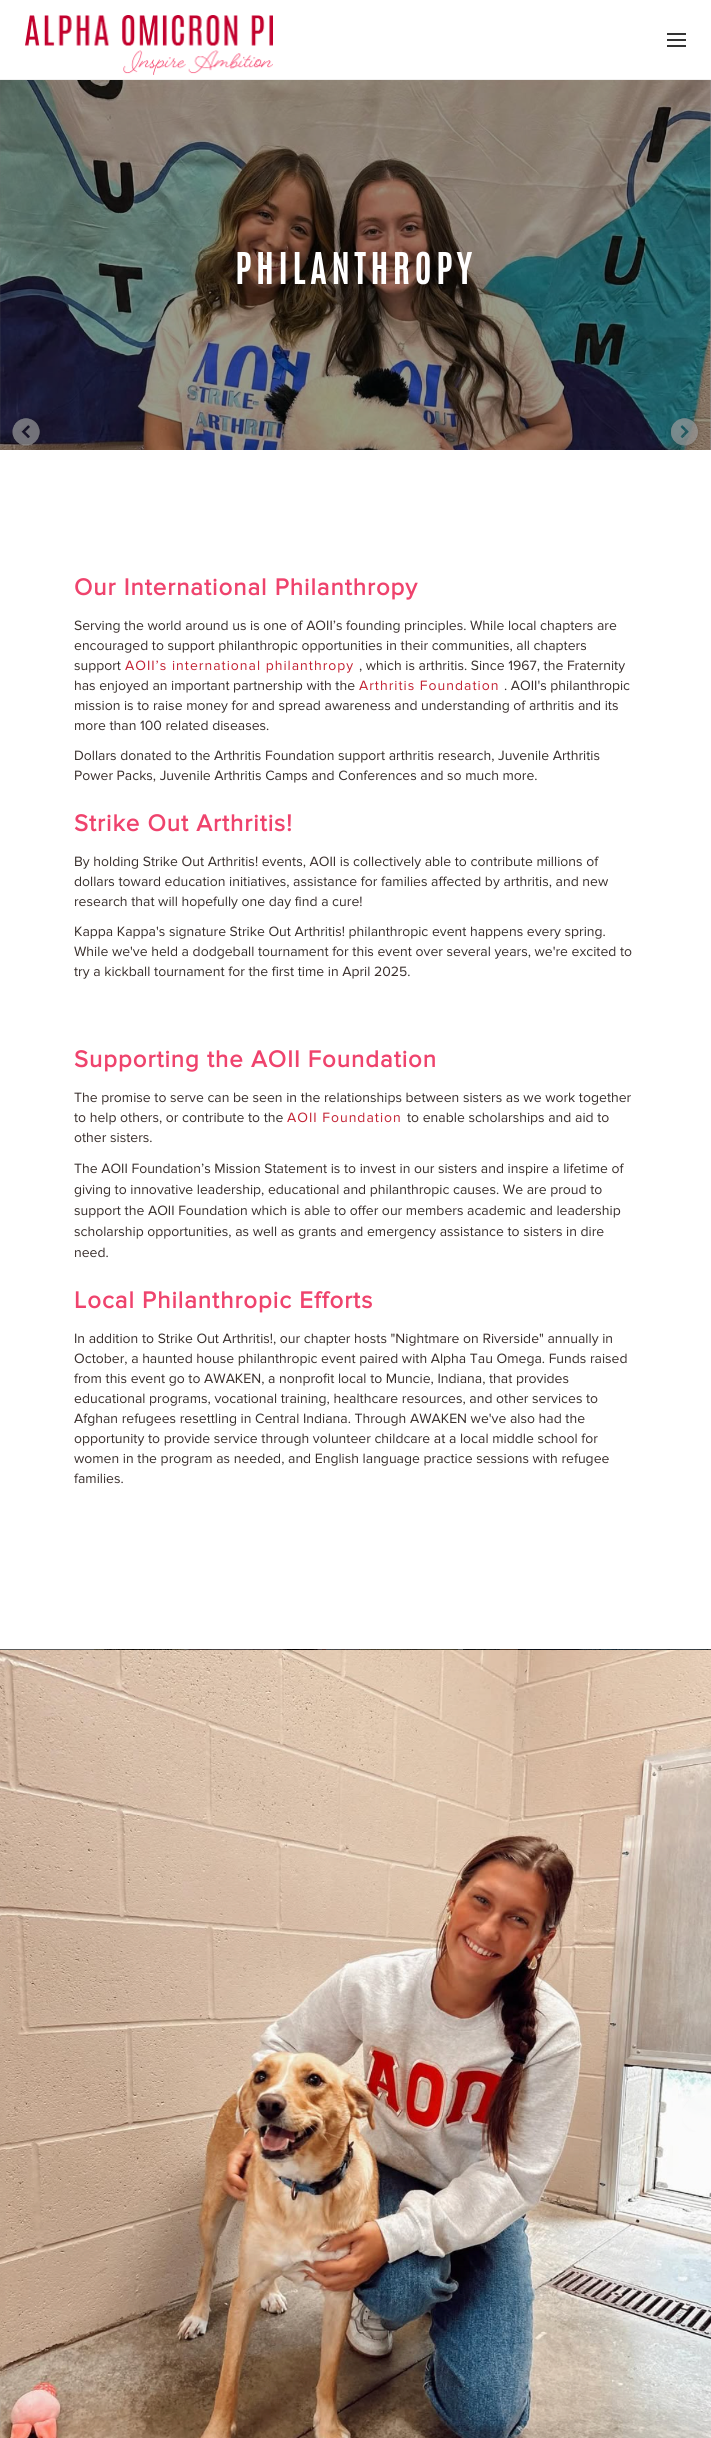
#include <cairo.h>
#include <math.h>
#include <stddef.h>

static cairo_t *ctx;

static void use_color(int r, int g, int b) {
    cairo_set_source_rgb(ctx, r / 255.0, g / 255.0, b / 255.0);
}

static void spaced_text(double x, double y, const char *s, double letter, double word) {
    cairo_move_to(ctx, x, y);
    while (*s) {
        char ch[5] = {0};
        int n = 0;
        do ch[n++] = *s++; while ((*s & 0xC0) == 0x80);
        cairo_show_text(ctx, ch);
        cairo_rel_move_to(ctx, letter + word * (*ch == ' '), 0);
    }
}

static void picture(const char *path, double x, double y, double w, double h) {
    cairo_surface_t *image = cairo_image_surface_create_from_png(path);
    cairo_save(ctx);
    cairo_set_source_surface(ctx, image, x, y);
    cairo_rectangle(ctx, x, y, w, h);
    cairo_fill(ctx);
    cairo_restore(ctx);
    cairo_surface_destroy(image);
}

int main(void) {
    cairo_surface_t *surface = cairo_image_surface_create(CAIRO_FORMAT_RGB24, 711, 2438);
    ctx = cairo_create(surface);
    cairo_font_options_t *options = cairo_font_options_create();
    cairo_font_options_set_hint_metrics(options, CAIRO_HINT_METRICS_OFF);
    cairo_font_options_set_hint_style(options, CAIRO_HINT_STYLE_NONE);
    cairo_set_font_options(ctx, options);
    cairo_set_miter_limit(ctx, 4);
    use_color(255, 255, 255);
    cairo_paint(ctx);
    use_color(241, 241, 241);
    cairo_rectangle(ctx, 0, 79, 711, 1);
    cairo_fill(ctx);
    picture("img1.png", 25, 15, 248, 60);
    use_color(51, 51, 51);
    cairo_rectangle(ctx, 667, 33, 19, 2);
    cairo_fill(ctx);
    cairo_rectangle(ctx, 667, 39, 19, 2);
    cairo_fill(ctx);
    cairo_rectangle(ctx, 667, 45, 19, 2);
    cairo_fill(ctx);
    picture("img2.png", 0, 80, 711, 370);
    cairo_select_font_face(ctx, "Antonio", CAIRO_FONT_SLANT_NORMAL, CAIRO_FONT_WEIGHT_BOLD);
    cairo_set_font_size(ctx, 36);
    use_color(255, 255, 255);
    spaced_text(235, 284, "PHILANTHROPY", 5, 0);
    cairo_select_font_face(ctx, "Proxima Nova", CAIRO_FONT_SLANT_NORMAL, CAIRO_FONT_WEIGHT_BOLD);
    cairo_set_font_size(ctx, 24);
    use_color(239, 67, 109);
    spaced_text(74, 595, "Our International Philanthropy", 1, 0);
    cairo_select_font_face(ctx, "Proxima Nova", CAIRO_FONT_SLANT_NORMAL, CAIRO_FONT_WEIGHT_NORMAL);
    cairo_set_font_size(ctx, 14);
    use_color(56, 46, 43);
    cairo_move_to(ctx, 74, 630);
    cairo_show_text(ctx, "Serving the world around us is one of AOII’s founding principles. While local chapters are");
    cairo_move_to(ctx, 74, 650);
    cairo_show_text(ctx, "encouraged to support philanthropic opportunities in their communities, all chapters");
    cairo_move_to(ctx, 74, 670);
    cairo_show_text(ctx, "support");
    use_color(194, 32, 50);
    spaced_text(125, 670, "AOII’s international philanthropy", 1, 0);
    use_color(56, 46, 43);
    cairo_move_to(ctx, 359, 670);
    cairo_show_text(ctx, ", which is arthritis. Since 1967, the Fraternity");
    cairo_move_to(ctx, 74, 690);
    cairo_show_text(ctx, "has enjoyed an important partnership with the");
    use_color(194, 32, 50);
    spaced_text(359, 690, "Arthritis Foundation", 1, 0);
    use_color(56, 46, 43);
    cairo_move_to(ctx, 504, 690);
    cairo_show_text(ctx, ". AOII's philanthropic");
    cairo_move_to(ctx, 74, 710);
    cairo_show_text(ctx, "mission is to raise money for and spread awareness and understanding of arthritis and its");
    cairo_move_to(ctx, 74, 730);
    cairo_show_text(ctx, "more than 100 related diseases.");
    cairo_move_to(ctx, 74, 760);
    cairo_show_text(ctx, "Dollars donated to the Arthritis Foundation support arthritis research, Juvenile Arthritis");
    cairo_move_to(ctx, 74, 780);
    cairo_show_text(ctx, "Power Packs, Juvenile Arthritis Camps and Conferences and so much more.");
    cairo_select_font_face(ctx, "Proxima Nova", CAIRO_FONT_SLANT_NORMAL, CAIRO_FONT_WEIGHT_BOLD);
    cairo_set_font_size(ctx, 24);
    use_color(239, 67, 109);
    spaced_text(74, 831, "Strike Out Arthritis!", 1, 0);
    cairo_select_font_face(ctx, "Proxima Nova", CAIRO_FONT_SLANT_NORMAL, CAIRO_FONT_WEIGHT_NORMAL);
    cairo_set_font_size(ctx, 14);
    use_color(56, 46, 43);
    cairo_move_to(ctx, 74, 866);
    cairo_show_text(ctx, "By holding Strike Out Arthritis! events, AOII is collectively able to contribute millions of");
    cairo_move_to(ctx, 74, 886);
    cairo_show_text(ctx, "dollars toward education initiatives, assistance for families affected by arthritis, and new");
    cairo_move_to(ctx, 74, 906);
    cairo_show_text(ctx, "research that will hopefully one day find a cure!");
    cairo_move_to(ctx, 74, 936);
    cairo_show_text(ctx, "Kappa Kappa's signature Strike Out Arthritis! philanthropic event happens every spring.");
    cairo_move_to(ctx, 74, 956);
    cairo_show_text(ctx, "While we've held a dodgeball tournament for this event over several years, we're excited to");
    cairo_move_to(ctx, 74, 976);
    cairo_show_text(ctx, "try a kickball tournament for the first time in April 2025.");
    cairo_select_font_face(ctx, "Proxima Nova", CAIRO_FONT_SLANT_NORMAL, CAIRO_FONT_WEIGHT_BOLD);
    cairo_set_font_size(ctx, 24);
    use_color(239, 67, 109);
    spaced_text(74, 1067, "Supporting the AOII Foundation", 1, 0);
    cairo_select_font_face(ctx, "Proxima Nova", CAIRO_FONT_SLANT_NORMAL, CAIRO_FONT_WEIGHT_NORMAL);
    cairo_set_font_size(ctx, 14);
    use_color(56, 46, 43);
    cairo_move_to(ctx, 74, 1102);
    cairo_show_text(ctx, "The promise to serve can be seen in the relationships between sisters as we work together");
    cairo_move_to(ctx, 74, 1122);
    cairo_show_text(ctx, "to help others, or contribute to the");
    use_color(194, 32, 50);
    spaced_text(287, 1122, "AOII Foundation", 1, 0);
    use_color(56, 46, 43);
    cairo_move_to(ctx, 407, 1122);
    cairo_show_text(ctx, "to enable scholarships and aid to");
    cairo_move_to(ctx, 74, 1142);
    cairo_show_text(ctx, "other sisters.");
    cairo_move_to(ctx, 74, 1173);
    cairo_show_text(ctx, "The AOII Foundation’s Mission Statement is to invest in our sisters and inspire a lifetime of");
    cairo_move_to(ctx, 74, 1194);
    cairo_show_text(ctx, "giving to innovative leadership, educational and philanthropic causes. We are proud to");
    cairo_move_to(ctx, 74, 1215);
    cairo_show_text(ctx, "support the AOII Foundation which is able to offer our members academic and leadership");
    cairo_move_to(ctx, 74, 1236);
    cairo_show_text(ctx, "scholarship opportunities, as well as grants and emergency assistance to sisters in dire");
    cairo_move_to(ctx, 74, 1257);
    cairo_show_text(ctx, "need.");
    cairo_select_font_face(ctx, "Proxima Nova", CAIRO_FONT_SLANT_NORMAL, CAIRO_FONT_WEIGHT_BOLD);
    cairo_set_font_size(ctx, 24);
    use_color(239, 67, 109);
    spaced_text(74, 1308, "Local Philanthropic Efforts", 1, 0);
    cairo_select_font_face(ctx, "Proxima Nova", CAIRO_FONT_SLANT_NORMAL, CAIRO_FONT_WEIGHT_NORMAL);
    cairo_set_font_size(ctx, 14);
    use_color(56, 46, 43);
    cairo_move_to(ctx, 74, 1343);
    cairo_show_text(ctx, "In addition to Strike Out Arthritis!, our chapter hosts \"Nightmare on Riverside\" annually in");
    cairo_move_to(ctx, 74, 1363);
    cairo_show_text(ctx, "October, a haunted house philanthropic event paired with Alpha Tau Omega. Funds raised");
    cairo_move_to(ctx, 74, 1383);
    cairo_show_text(ctx, "from this event go to AWAKEN, a nonprofit local to Muncie, Indiana, that provides");
    cairo_move_to(ctx, 74, 1403);
    cairo_show_text(ctx, "educational programs, vocational training, healthcare resources, and other services to");
    cairo_move_to(ctx, 74, 1423);
    cairo_show_text(ctx, "Afghan refugees resettling in Central Indiana. Through AWAKEN we've also had the");
    cairo_move_to(ctx, 74, 1443);
    cairo_show_text(ctx, "opportunity to provide service through volunteer childcare at a local middle school for");
    cairo_move_to(ctx, 74, 1463);
    cairo_show_text(ctx, "women in the program as needed, and English language practice sessions with refugee");
    cairo_move_to(ctx, 74, 1483);
    cairo_show_text(ctx, "families.");
    picture("img3.png", 0, 1649, 711, 789);
    cairo_surface_write_to_png(surface, "result.png");
    cairo_font_options_destroy(options);
    cairo_destroy(ctx);
    cairo_surface_destroy(surface);
    return 0;
}
